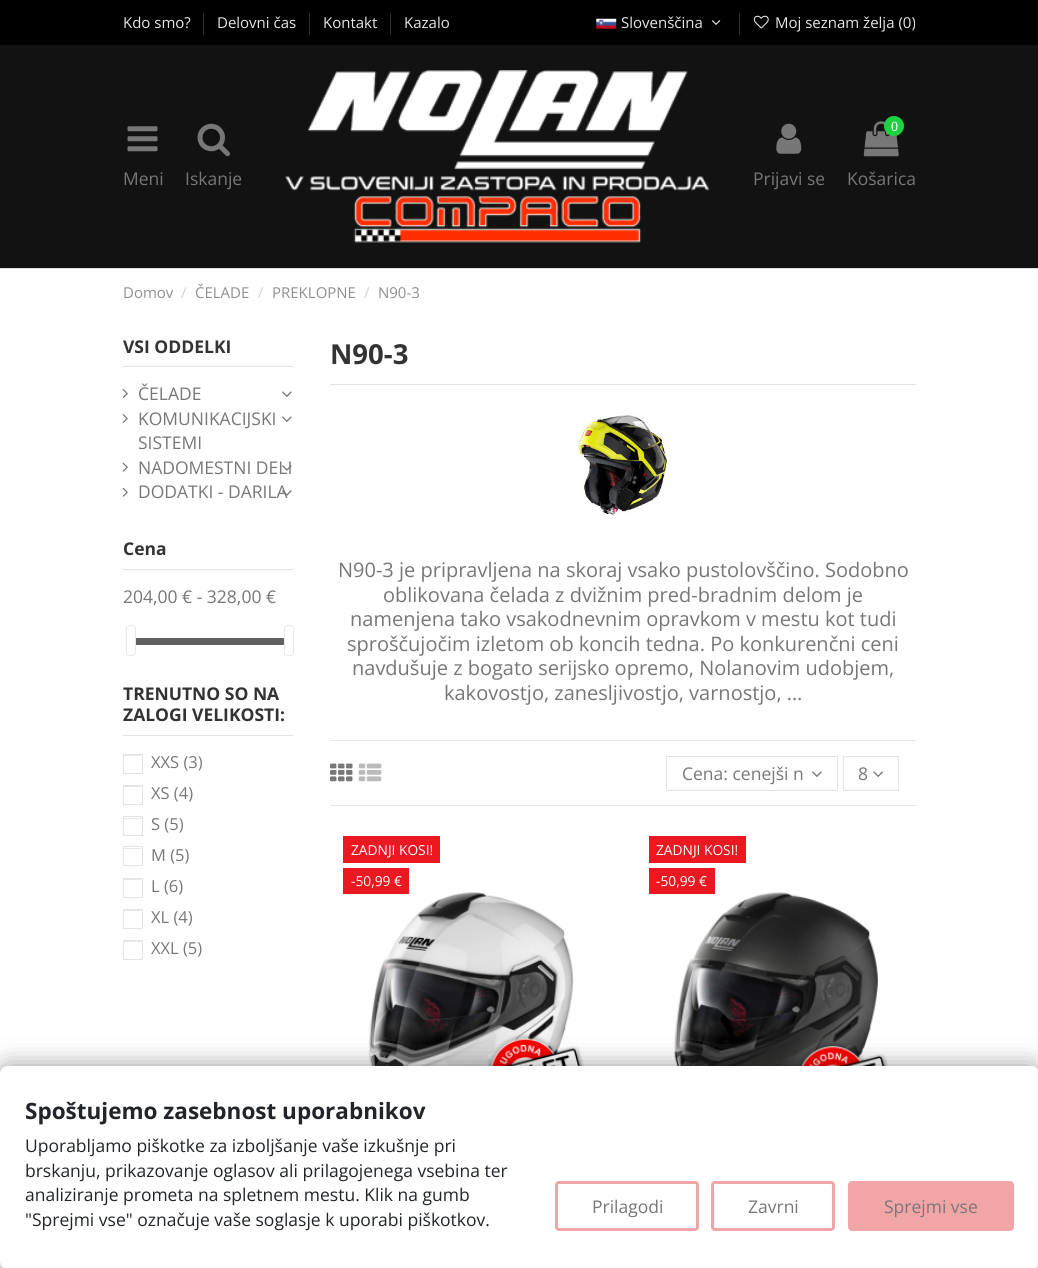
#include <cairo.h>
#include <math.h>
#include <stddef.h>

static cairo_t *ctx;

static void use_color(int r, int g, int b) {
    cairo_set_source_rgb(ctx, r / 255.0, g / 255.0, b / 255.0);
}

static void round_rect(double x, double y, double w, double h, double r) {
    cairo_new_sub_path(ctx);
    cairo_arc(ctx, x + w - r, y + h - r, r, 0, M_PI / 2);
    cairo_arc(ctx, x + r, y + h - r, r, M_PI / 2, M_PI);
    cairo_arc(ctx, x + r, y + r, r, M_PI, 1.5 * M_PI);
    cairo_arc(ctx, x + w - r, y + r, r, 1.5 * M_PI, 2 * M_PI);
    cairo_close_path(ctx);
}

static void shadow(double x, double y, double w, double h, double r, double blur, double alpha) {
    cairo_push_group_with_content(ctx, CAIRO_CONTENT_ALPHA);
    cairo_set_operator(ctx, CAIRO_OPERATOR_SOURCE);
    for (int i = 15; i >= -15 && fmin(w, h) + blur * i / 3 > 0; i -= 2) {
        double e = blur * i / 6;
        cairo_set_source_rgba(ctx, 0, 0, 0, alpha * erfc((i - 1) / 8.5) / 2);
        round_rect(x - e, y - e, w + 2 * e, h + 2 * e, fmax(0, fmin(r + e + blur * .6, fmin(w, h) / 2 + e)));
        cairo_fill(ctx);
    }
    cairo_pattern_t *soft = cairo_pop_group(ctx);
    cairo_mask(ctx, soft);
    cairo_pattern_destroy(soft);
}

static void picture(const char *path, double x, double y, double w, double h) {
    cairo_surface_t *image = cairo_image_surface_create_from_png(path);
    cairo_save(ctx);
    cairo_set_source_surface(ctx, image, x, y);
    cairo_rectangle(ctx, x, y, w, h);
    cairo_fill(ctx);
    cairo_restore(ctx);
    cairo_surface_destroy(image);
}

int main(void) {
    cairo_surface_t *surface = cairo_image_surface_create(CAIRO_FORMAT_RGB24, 1038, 1268);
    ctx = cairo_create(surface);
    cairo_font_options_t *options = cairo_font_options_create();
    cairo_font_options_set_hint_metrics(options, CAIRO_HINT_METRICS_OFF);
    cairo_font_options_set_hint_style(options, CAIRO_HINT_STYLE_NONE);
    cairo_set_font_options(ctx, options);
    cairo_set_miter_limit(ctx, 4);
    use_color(255, 255, 255);
    cairo_paint(ctx);
    use_color(18, 18, 18);
    cairo_rectangle(ctx, 0, 45, 1038, 223);
    cairo_fill(ctx);
    use_color(0, 0, 0);
    cairo_rectangle(ctx, 0, 0, 1038, 45);
    cairo_fill(ctx);
    cairo_select_font_face(ctx, "Open Sans", CAIRO_FONT_SLANT_NORMAL, CAIRO_FONT_WEIGHT_NORMAL);
    cairo_set_font_size(ctx, 15);
    use_color(231, 231, 231);
    cairo_move_to(ctx, 123, 28);
    cairo_show_text(ctx, "Kdo smo?");
    use_color(46, 46, 46);
    cairo_rectangle(ctx, 203, 13, 1, 22);
    cairo_fill(ctx);
    use_color(231, 231, 231);
    cairo_move_to(ctx, 217, 28);
    cairo_show_text(ctx, "Delovni čas");
    use_color(46, 46, 46);
    cairo_rectangle(ctx, 309, 13, 1, 22);
    cairo_fill(ctx);
    use_color(231, 231, 231);
    cairo_move_to(ctx, 323, 28);
    cairo_show_text(ctx, "Kontakt");
    use_color(46, 46, 46);
    cairo_rectangle(ctx, 390, 13, 1, 22);
    cairo_fill(ctx);
    use_color(231, 231, 231);
    cairo_move_to(ctx, 404, 28);
    cairo_show_text(ctx, "Kazalo");
    picture("img1.png", 596, 18, 21, 11);
    cairo_move_to(ctx, 621, 28);
    cairo_show_text(ctx, "Slovenščina");
    picture("img2.png", 711, 20, 10, 5);
    use_color(46, 46, 46);
    cairo_rectangle(ctx, 739, 13, 1, 22);
    cairo_fill(ctx);
    picture("img3.png", 753, 15, 16, 14);
    use_color(231, 231, 231);
    cairo_move_to(ctx, 775, 28);
    cairo_show_text(ctx, "Moj seznam želja (0)");
    use_color(227, 227, 227);
    cairo_rectangle(ctx, 0, 268, 1038, 1);
    cairo_fill(ctx);
    picture("img4.png", 127, 126, 31, 26);
    cairo_set_font_size(ctx, 17.5);
    use_color(119, 119, 119);
    cairo_move_to(ctx, 123, 185);
    cairo_show_text(ctx, "Meni");
    picture("img5.png", 197, 123, 33, 34);
    cairo_move_to(ctx, 185, 185);
    cairo_show_text(ctx, "Iskanje");
    picture("img6.png", 285, 70, 425, 173);
    picture("img7.png", 776, 123, 26, 31);
    cairo_move_to(ctx, 753, 185);
    cairo_show_text(ctx, "Prijavi se");
    picture("img8.png", 863, 121, 36, 36);
    use_color(27, 211, 63);
    cairo_arc(ctx, 894, 126, 10, 0, 2 * M_PI);
    cairo_fill(ctx);
    cairo_select_font_face(ctx, "Liberation Serif", CAIRO_FONT_SLANT_NORMAL, CAIRO_FONT_WEIGHT_NORMAL);
    cairo_set_font_size(ctx, 14);
    use_color(255, 255, 255);
    cairo_move_to(ctx, 891, 131);
    cairo_show_text(ctx, "0");
    cairo_select_font_face(ctx, "Open Sans", CAIRO_FONT_SLANT_NORMAL, CAIRO_FONT_WEIGHT_NORMAL);
    cairo_set_font_size(ctx, 17.5);
    use_color(119, 119, 119);
    cairo_move_to(ctx, 847, 185);
    cairo_show_text(ctx, "Košarica");
    cairo_set_font_size(ctx, 15);
    use_color(143, 143, 143);
    cairo_move_to(ctx, 123, 298);
    cairo_show_text(ctx, "Domov");
    use_color(210, 210, 210);
    cairo_move_to(ctx, 181, 298);
    cairo_show_text(ctx, "/");
    use_color(143, 143, 143);
    cairo_move_to(ctx, 195, 298);
    cairo_show_text(ctx, "ČELADE");
    use_color(210, 210, 210);
    cairo_move_to(ctx, 258, 298);
    cairo_show_text(ctx, "/");
    use_color(143, 143, 143);
    cairo_move_to(ctx, 272, 298);
    cairo_show_text(ctx, "PREKLOPNE");
    use_color(210, 210, 210);
    cairo_move_to(ctx, 364, 298);
    cairo_show_text(ctx, "/");
    use_color(143, 143, 143);
    cairo_move_to(ctx, 378, 298);
    cairo_show_text(ctx, "N90-3");
    use_color(227, 227, 227);
    cairo_rectangle(ctx, 123, 366, 170, 1);
    cairo_fill(ctx);
    cairo_select_font_face(ctx, "Open Sans", CAIRO_FONT_SLANT_NORMAL, CAIRO_FONT_WEIGHT_BOLD);
    cairo_set_font_size(ctx, 17.5);
    use_color(51, 51, 51);
    cairo_move_to(ctx, 123, 353);
    cairo_show_text(ctx, "VSI ODDELKI");
    picture("img9.png", 122, 389, 6, 9);
    cairo_select_font_face(ctx, "Open Sans", CAIRO_FONT_SLANT_NORMAL, CAIRO_FONT_WEIGHT_NORMAL);
    use_color(119, 119, 119);
    cairo_move_to(ctx, 138, 400);
    cairo_show_text(ctx, "ČELADE");
    picture("img10.png", 282, 391, 10, 6);
    picture("img9.png", 122, 414, 6, 9);
    cairo_move_to(ctx, 138, 425);
    cairo_show_text(ctx, "KOMUNIKACIJSKI");
    cairo_move_to(ctx, 138, 449);
    cairo_show_text(ctx, "SISTEMI");
    picture("img10.png", 282, 416, 10, 6);
    picture("img11.png", 122, 462, 6, 10);
    cairo_move_to(ctx, 138, 474);
    cairo_show_text(ctx, "NADOMESTNI DELI");
    picture("img12.png", 282, 465, 10, 6);
    picture("img11.png", 122, 487, 6, 10);
    cairo_move_to(ctx, 138, 498);
    cairo_show_text(ctx, "DODATKI - DARILA");
    picture("img13.png", 282, 490, 10, 6);
    use_color(227, 227, 227);
    cairo_rectangle(ctx, 123, 569, 170, 1);
    cairo_fill(ctx);
    cairo_select_font_face(ctx, "Open Sans", CAIRO_FONT_SLANT_NORMAL, CAIRO_FONT_WEIGHT_BOLD);
    use_color(51, 51, 51);
    cairo_move_to(ctx, 123, 555);
    cairo_show_text(ctx, "Cena");
    cairo_select_font_face(ctx, "Open Sans", CAIRO_FONT_SLANT_NORMAL, CAIRO_FONT_WEIGHT_NORMAL);
    use_color(119, 119, 119);
    cairo_move_to(ctx, 123, 603);
    cairo_show_text(ctx, "204,00 € - 328,00 €");
    use_color(240, 240, 240);
    round_rect(129, 638, 157, 7, 3.5);
    cairo_fill(ctx);
    cairo_set_source_rgba(ctx, 0, 0, 0, 0.6);
    round_rect(129, 638, 157, 7, 3.5);
    cairo_fill(ctx);
    use_color(255, 255, 255);
    round_rect(126.5, 625.5, 9, 30, 3.5);
    cairo_fill_preserve(ctx);
    use_color(232, 232, 232);
    cairo_set_line_width(ctx, 1);
    cairo_stroke(ctx);
    use_color(255, 255, 255);
    round_rect(284.5, 625.5, 9, 30, 3.5);
    cairo_fill_preserve(ctx);
    use_color(232, 232, 232);
    cairo_stroke(ctx);
    use_color(227, 227, 227);
    cairo_rectangle(ctx, 123, 735, 170, 1);
    cairo_fill(ctx);
    cairo_select_font_face(ctx, "Open Sans", CAIRO_FONT_SLANT_NORMAL, CAIRO_FONT_WEIGHT_BOLD);
    use_color(51, 51, 51);
    cairo_move_to(ctx, 123, 700);
    cairo_show_text(ctx, "TRENUTNO SO NA");
    cairo_move_to(ctx, 123, 721);
    cairo_show_text(ctx, "ZALOGI VELIKOSTI:");
    use_color(232, 232, 232);
    cairo_rectangle(ctx, 124, 755, 17, 1);
    cairo_fill(ctx);
    cairo_rectangle(ctx, 123.5, 754.5, 19, 19);
    use_color(227, 227, 227);
    cairo_stroke(ctx);
    cairo_select_font_face(ctx, "Open Sans", CAIRO_FONT_SLANT_NORMAL, CAIRO_FONT_WEIGHT_NORMAL);
    cairo_set_font_size(ctx, 16.5);
    use_color(119, 119, 119);
    cairo_move_to(ctx, 151, 768);
    cairo_show_text(ctx, "XXS (3)");
    use_color(232, 232, 232);
    cairo_rectangle(ctx, 124, 786, 17, 1);
    cairo_fill(ctx);
    cairo_rectangle(ctx, 123.5, 785.5, 19, 19);
    use_color(227, 227, 227);
    cairo_stroke(ctx);
    round_rect(123.5, 785.5, 19, 19, 2);
    cairo_stroke(ctx);
    use_color(119, 119, 119);
    cairo_move_to(ctx, 151, 799);
    cairo_show_text(ctx, "XS (4)");
    use_color(232, 232, 232);
    cairo_rectangle(ctx, 124, 818, 17, 1);
    cairo_fill(ctx);
    cairo_rectangle(ctx, 123.5, 816.5, 19, 19);
    use_color(227, 227, 227);
    cairo_stroke(ctx);
    round_rect(123.5, 816.5, 19, 19, 2);
    cairo_stroke(ctx);
    use_color(119, 119, 119);
    cairo_move_to(ctx, 151, 830);
    cairo_show_text(ctx, "S (5)");
    use_color(232, 232, 232);
    cairo_rectangle(ctx, 124, 848, 17, 1);
    cairo_fill(ctx);
    cairo_rectangle(ctx, 123.5, 846.5, 19, 19);
    use_color(227, 227, 227);
    cairo_stroke(ctx);
    use_color(119, 119, 119);
    cairo_move_to(ctx, 151, 861);
    cairo_show_text(ctx, "M (5)");
    use_color(232, 232, 232);
    cairo_rectangle(ctx, 124, 879, 17, 1);
    cairo_fill(ctx);
    cairo_rectangle(ctx, 123.5, 878.5, 19, 19);
    use_color(227, 227, 227);
    cairo_stroke(ctx);
    use_color(119, 119, 119);
    cairo_move_to(ctx, 151, 892);
    cairo_show_text(ctx, "L (6)");
    use_color(232, 232, 232);
    cairo_rectangle(ctx, 124, 910, 17, 1);
    cairo_fill(ctx);
    cairo_rectangle(ctx, 123.5, 909.5, 19, 19);
    use_color(227, 227, 227);
    cairo_stroke(ctx);
    use_color(119, 119, 119);
    cairo_move_to(ctx, 151, 923);
    cairo_show_text(ctx, "XL (4)");
    use_color(232, 232, 232);
    cairo_rectangle(ctx, 124, 941, 17, 1);
    cairo_fill(ctx);
    cairo_rectangle(ctx, 123.5, 940.5, 19, 19);
    use_color(227, 227, 227);
    cairo_stroke(ctx);
    round_rect(123.5, 940.5, 19, 19, 2);
    cairo_stroke(ctx);
    use_color(119, 119, 119);
    cairo_move_to(ctx, 151, 954);
    cairo_show_text(ctx, "XXL (5)");
    use_color(227, 227, 227);
    cairo_rectangle(ctx, 330, 384, 586, 1);
    cairo_fill(ctx);
    cairo_select_font_face(ctx, "Open Sans", CAIRO_FONT_SLANT_NORMAL, CAIRO_FONT_WEIGHT_BOLD);
    cairo_set_font_size(ctx, 27.5);
    use_color(51, 51, 51);
    cairo_move_to(ctx, 330, 364);
    cairo_show_text(ctx, "N90-3");
    picture("img14.png", 578, 415, 93, 101);
    cairo_select_font_face(ctx, "Open Sans", CAIRO_FONT_SLANT_NORMAL, CAIRO_FONT_WEIGHT_NORMAL);
    cairo_set_font_size(ctx, 20);
    use_color(119, 119, 119);
    cairo_move_to(ctx, 338, 577);
    cairo_show_text(ctx, "N90-3 je pripravljena na skoraj vsako pustolovščino. Sodobno");
    cairo_move_to(ctx, 383, 602);
    cairo_show_text(ctx, "oblikovana čelada z dvižnim pred-bradnim delom je");
    cairo_move_to(ctx, 350, 626);
    cairo_show_text(ctx, "namenjena tako vsakodnevnim opravkom v mestu kot tudi");
    cairo_move_to(ctx, 347, 651);
    cairo_show_text(ctx, "sproščujočim izletom ob koncih tedna. Po konkurenčni ceni");
    cairo_move_to(ctx, 352, 675);
    cairo_show_text(ctx, "navdušuje z bogato serijsko opremo, Nolanovim udobjem,");
    cairo_move_to(ctx, 444, 700);
    cairo_show_text(ctx, "kakovostjo, zanesljivostjo, varnostjo, …");
    use_color(231, 231, 231);
    cairo_rectangle(ctx, 330, 740, 586, 1);
    cairo_fill(ctx);
    cairo_rectangle(ctx, 330, 805, 586, 1);
    cairo_fill(ctx);
    picture("img15.png", 330, 763, 23, 19);
    picture("img16.png", 358, 763, 24, 19);
    cairo_rectangle(ctx, 666.5, 756.5, 171, 34);
    use_color(227, 227, 227);
    cairo_stroke(ctx);
    cairo_set_font_size(ctx, 17.5);
    use_color(119, 119, 119);
    cairo_move_to(ctx, 682, 780);
    cairo_show_text(ctx, "Cena: cenejši n");
    picture("img10.png", 812, 771, 10, 6);
    cairo_rectangle(ctx, 843.5, 756.5, 55, 34);
    use_color(227, 227, 227);
    cairo_stroke(ctx);
    use_color(119, 119, 119);
    cairo_move_to(ctx, 858, 780);
    cairo_show_text(ctx, "8");
    picture("img17.png", 873, 771, 10, 6);
    use_color(236, 24, 33);
    cairo_rectangle(ctx, 343, 836, 97, 27);
    cairo_fill(ctx);
    cairo_set_font_size(ctx, 13.75);
    use_color(255, 255, 255);
    cairo_move_to(ctx, 351, 855);
    cairo_show_text(ctx, "ZADNJI KOSI!");
    picture("img18.png", 368, 892, 217, 174);
    use_color(236, 24, 33);
    cairo_rectangle(ctx, 343, 868, 66, 26);
    cairo_fill(ctx);
    use_color(255, 255, 255);
    cairo_move_to(ctx, 351, 886);
    cairo_show_text(ctx, "-50,99 €");
    use_color(236, 24, 33);
    cairo_rectangle(ctx, 649, 836, 97, 27);
    cairo_fill(ctx);
    use_color(255, 255, 255);
    cairo_move_to(ctx, 656, 855);
    cairo_show_text(ctx, "ZADNJI KOSI!");
    picture("img19.png", 673, 892, 218, 174);
    use_color(236, 24, 33);
    cairo_rectangle(ctx, 649, 868, 66, 26);
    cairo_fill(ctx);
    use_color(255, 255, 255);
    cairo_move_to(ctx, 656, 886);
    cairo_show_text(ctx, "-50,99 €");
    use_color(0, 0, 0);
    shadow(0, 1066, 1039, 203, 8, 12.5, 0.4);
    use_color(255, 255, 255);
    round_rect(0, 1066, 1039, 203, 8);
    cairo_fill(ctx);
    cairo_select_font_face(ctx, "Open Sans", CAIRO_FONT_SLANT_NORMAL, CAIRO_FONT_WEIGHT_BOLD);
    cairo_set_font_size(ctx, 22.5);
    use_color(33, 37, 41);
    cairo_move_to(ctx, 25, 1119);
    cairo_show_text(ctx, "Spoštujemo zasebnost uporabnikov");
    cairo_select_font_face(ctx, "Open Sans", CAIRO_FONT_SLANT_NORMAL, CAIRO_FONT_WEIGHT_NORMAL);
    cairo_set_font_size(ctx, 17.5);
    cairo_move_to(ctx, 25, 1152);
    cairo_show_text(ctx, "Uporabljamo piškotke za izboljšanje vaše izkušnje pri");
    cairo_move_to(ctx, 25, 1177);
    cairo_show_text(ctx, "brskanju, prikazovanje oglasov ali prilagojenega vsebina ter");
    cairo_move_to(ctx, 25, 1201);
    cairo_show_text(ctx, "analiziranje prometa na spletnem mestu. Klik na gumb");
    cairo_move_to(ctx, 25, 1226);
    cairo_show_text(ctx, "\"Sprejmi vse\" označuje vaše soglasje k uporabi piškotkov.");
    round_rect(556.5, 1182.5, 141, 47, 2.5);
    use_color(242, 165, 166);
    cairo_set_line_width(ctx, 3);
    cairo_stroke(ctx);
    use_color(119, 119, 119);
    cairo_move_to(ctx, 592, 1213);
    cairo_show_text(ctx, "Prilagodi");
    round_rect(712.5, 1182.5, 121, 47, 2.5);
    use_color(242, 165, 166);
    cairo_stroke(ctx);
    use_color(119, 119, 119);
    cairo_move_to(ctx, 748, 1213);
    cairo_show_text(ctx, "Zavrni");
    use_color(242, 165, 166);
    round_rect(849.5, 1182.5, 163, 47, 2.5);
    cairo_fill_preserve(ctx);
    cairo_stroke(ctx);
    use_color(119, 119, 119);
    cairo_move_to(ctx, 884, 1213);
    cairo_show_text(ctx, "Sprejmi vse");
    cairo_surface_write_to_png(surface, "result.png");
    cairo_font_options_destroy(options);
    cairo_destroy(ctx);
    cairo_surface_destroy(surface);
    return 0;
}
